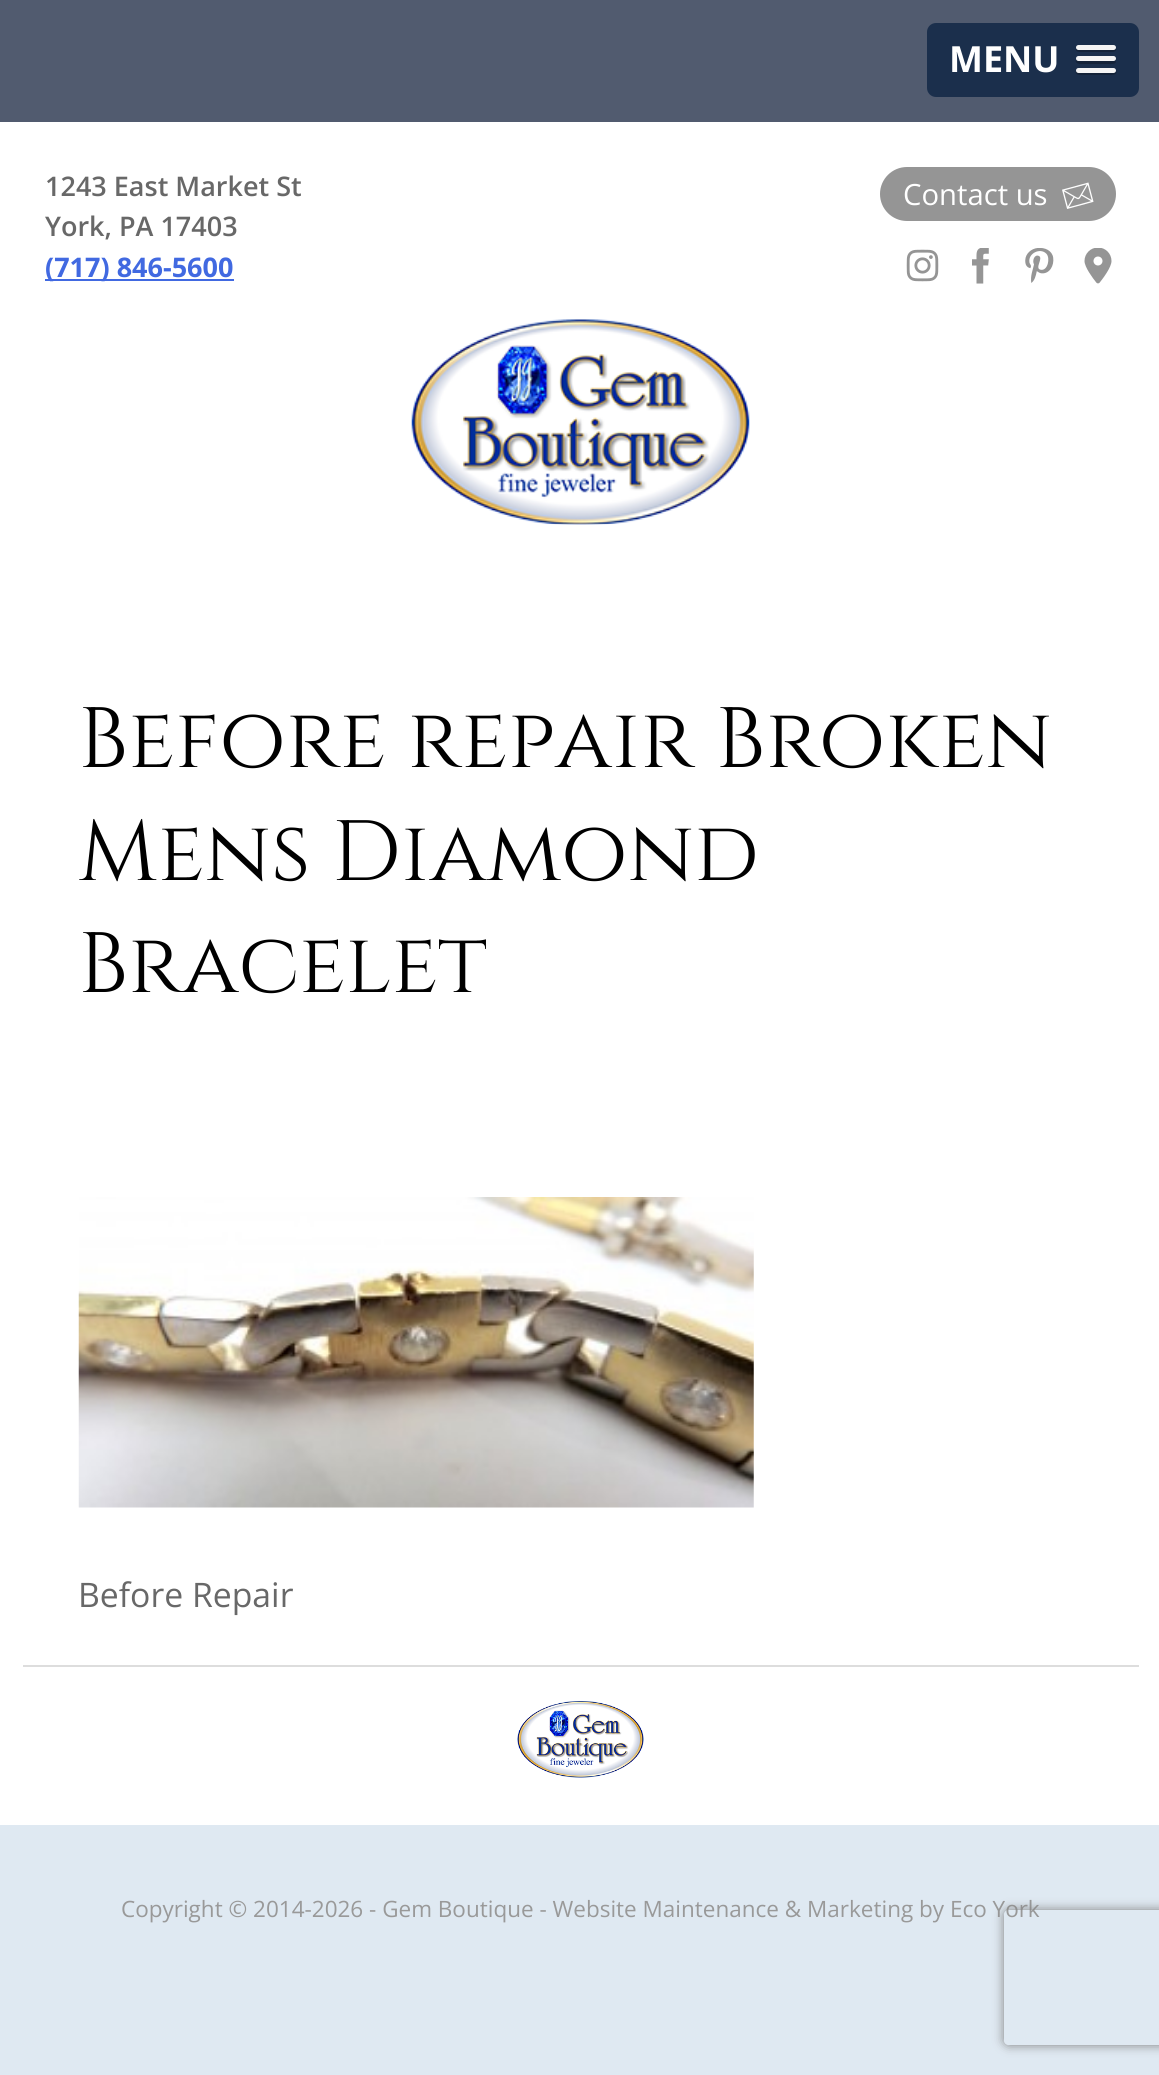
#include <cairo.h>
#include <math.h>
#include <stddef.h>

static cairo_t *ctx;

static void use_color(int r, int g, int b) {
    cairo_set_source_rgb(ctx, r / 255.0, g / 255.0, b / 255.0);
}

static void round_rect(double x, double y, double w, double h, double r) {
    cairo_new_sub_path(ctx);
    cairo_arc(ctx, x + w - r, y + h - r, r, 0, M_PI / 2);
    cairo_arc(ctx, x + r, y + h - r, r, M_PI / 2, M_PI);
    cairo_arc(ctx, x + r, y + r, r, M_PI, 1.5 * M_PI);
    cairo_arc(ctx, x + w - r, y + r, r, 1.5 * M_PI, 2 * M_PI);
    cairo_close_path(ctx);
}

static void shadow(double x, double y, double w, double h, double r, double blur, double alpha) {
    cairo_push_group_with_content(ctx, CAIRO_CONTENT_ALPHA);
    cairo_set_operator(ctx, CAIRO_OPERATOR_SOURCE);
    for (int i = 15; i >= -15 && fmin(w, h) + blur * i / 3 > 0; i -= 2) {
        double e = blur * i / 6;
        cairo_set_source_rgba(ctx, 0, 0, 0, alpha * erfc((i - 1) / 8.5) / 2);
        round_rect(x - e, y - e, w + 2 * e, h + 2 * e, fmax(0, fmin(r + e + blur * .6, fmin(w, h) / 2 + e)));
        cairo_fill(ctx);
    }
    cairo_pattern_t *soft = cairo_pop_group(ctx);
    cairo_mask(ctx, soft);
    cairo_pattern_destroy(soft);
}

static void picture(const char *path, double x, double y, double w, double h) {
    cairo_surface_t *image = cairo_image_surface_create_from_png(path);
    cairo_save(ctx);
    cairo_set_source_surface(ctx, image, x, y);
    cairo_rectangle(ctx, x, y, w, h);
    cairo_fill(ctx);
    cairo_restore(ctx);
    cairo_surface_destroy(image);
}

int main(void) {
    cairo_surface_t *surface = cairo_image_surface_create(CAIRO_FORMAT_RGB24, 1159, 2075);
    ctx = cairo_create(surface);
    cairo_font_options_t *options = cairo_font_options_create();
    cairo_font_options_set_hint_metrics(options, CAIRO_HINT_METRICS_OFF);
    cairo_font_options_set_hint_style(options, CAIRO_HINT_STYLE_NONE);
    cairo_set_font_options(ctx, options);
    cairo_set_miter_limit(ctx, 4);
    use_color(223, 233, 242);
    cairo_paint(ctx);
    use_color(81, 91, 111);
    cairo_rectangle(ctx, 0, 0, 1159, 122);
    cairo_fill(ctx);
    use_color(27, 47, 76);
    round_rect(927, 23, 212, 74, 9);
    cairo_fill(ctx);
    cairo_select_font_face(ctx, "Open Sans", CAIRO_FONT_SLANT_NORMAL, CAIRO_FONT_WEIGHT_BOLD);
    cairo_set_font_size(ctx, 36);
    use_color(255, 255, 255);
    cairo_move_to(ctx, 949, 72);
    cairo_show_text(ctx, "MENU");
    use_color(20, 35, 57);
    cairo_new_path(ctx);
    cairo_move_to(ctx, 1076, 49);
    cairo_curve_to(ctx, 1075, 53, 1083, 52, 1084, 52);
    cairo_line_to(ctx, 1108, 52);
    cairo_curve_to(ctx, 1109, 52, 1118, 53, 1116, 48);
    cairo_line_to(ctx, 1114, 49);
    cairo_curve_to(ctx, 1110, 50, 1077, 50, 1076, 49);
    cairo_close_path(ctx);
    cairo_fill(ctx);
    use_color(245, 245, 245);
    round_rect(1076, 45, 40, 5, 2.5);
    cairo_fill(ctx);
    use_color(20, 35, 57);
    cairo_new_path(ctx);
    cairo_move_to(ctx, 1076, 60);
    cairo_curve_to(ctx, 1074, 65, 1084, 64, 1084, 64);
    cairo_line_to(ctx, 1108, 64);
    cairo_curve_to(ctx, 1108, 64, 1119, 65, 1115, 60);
    cairo_line_to(ctx, 1114, 61);
    cairo_curve_to(ctx, 1111, 61, 1078, 61, 1076, 60);
    cairo_close_path(ctx);
    cairo_fill(ctx);
    use_color(245, 245, 245);
    round_rect(1076, 56, 40, 5, 2.5);
    cairo_fill(ctx);
    use_color(20, 35, 57);
    cairo_new_path(ctx);
    cairo_move_to(ctx, 1076, 71);
    cairo_curve_to(ctx, 1074, 76, 1083, 75, 1084, 75);
    cairo_line_to(ctx, 1108, 75);
    cairo_curve_to(ctx, 1108, 75, 1119, 76, 1116, 71);
    cairo_line_to(ctx, 1114, 72);
    cairo_curve_to(ctx, 1110, 72, 1078, 73, 1076, 71);
    cairo_close_path(ctx);
    cairo_fill(ctx);
    use_color(245, 245, 245);
    round_rect(1076, 68, 40, 5, 2.5);
    cairo_fill(ctx);
    use_color(255, 255, 255);
    cairo_rectangle(ctx, 0, 122, 1159, 1703);
    cairo_fill(ctx);
    cairo_select_font_face(ctx, "Open Sans SemiBold", CAIRO_FONT_SLANT_NORMAL, CAIRO_FONT_WEIGHT_NORMAL);
    cairo_set_font_size(ctx, 27);
    use_color(104, 104, 104);
    cairo_move_to(ctx, 45, 196);
    cairo_show_text(ctx, "1243 East Market St");
    cairo_move_to(ctx, 45, 236);
    cairo_show_text(ctx, "York, PA 17403");
    use_color(65, 105, 225);
    cairo_rectangle(ctx, 45, 279, 189, 2);
    cairo_fill(ctx);
    cairo_select_font_face(ctx, "Open Sans", CAIRO_FONT_SLANT_NORMAL, CAIRO_FONT_WEIGHT_BOLD);
    cairo_move_to(ctx, 45, 277);
    cairo_show_text(ctx, "(717) 846-5600");
    use_color(149, 149, 149);
    round_rect(880, 167, 236, 54, 27);
    cairo_fill(ctx);
    cairo_select_font_face(ctx, "Open Sans", CAIRO_FONT_SLANT_NORMAL, CAIRO_FONT_WEIGHT_NORMAL);
    cairo_set_font_size(ctx, 29.25);
    use_color(255, 255, 255);
    cairo_move_to(ctx, 903, 205);
    cairo_show_text(ctx, "Contact us");
    picture("img1.png", 1062, 182, 32, 27);
    picture("img2.png", 906, 249, 33, 33);
    picture("img3.png", 972, 248, 17, 36);
    picture("img4.png", 1025, 248, 29, 35);
    picture("img5.png", 1084, 248, 28, 36);
    picture("img6.png", 411, 319, 339, 206);
    cairo_select_font_face(ctx, "Cinzel", CAIRO_FONT_SLANT_NORMAL, CAIRO_FONT_WEIGHT_NORMAL);
    cairo_set_font_size(ctx, 85.5);
    use_color(0, 0, 0);
    cairo_move_to(ctx, 78, 767);
    cairo_show_text(ctx, "Before repair Broken");
    cairo_move_to(ctx, 78, 880);
    cairo_show_text(ctx, "Mens Diamond");
    cairo_move_to(ctx, 78, 992);
    cairo_show_text(ctx, "Bracelet");
    picture("img7.png", 78, 1197, 676, 311);
    cairo_select_font_face(ctx, "Open Sans", CAIRO_FONT_SLANT_NORMAL, CAIRO_FONT_WEIGHT_NORMAL);
    cairo_set_font_size(ctx, 33.75);
    use_color(104, 104, 104);
    cairo_move_to(ctx, 78, 1607);
    cairo_show_text(ctx, "Before Repair");
    use_color(221, 221, 221);
    cairo_rectangle(ctx, 23, 1665, 1116, 2);
    cairo_fill(ctx);
    picture("img8.png", 517, 1701, 127, 77);
    cairo_set_font_size(ctx, 22.5);
    use_color(153, 153, 153);
    cairo_move_to(ctx, 121, 1917);
    cairo_show_text(ctx, "Copyright © 2014-2026 - Gem Boutique - Website Maintenance & Marketing by Eco York");
    cairo_save(ctx);
    cairo_set_fill_rule(ctx, CAIRO_FILL_RULE_EVEN_ODD);
    cairo_new_path(ctx);
    cairo_move_to(ctx, 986, 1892);
    cairo_line_to(ctx, 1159, 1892);
    cairo_line_to(ctx, 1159, 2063);
    cairo_line_to(ctx, 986, 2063);
    cairo_close_path(ctx);
    cairo_move_to(ctx, 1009, 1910);
    cairo_line_to(ctx, 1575, 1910);
    cairo_curve_to(ctx, 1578, 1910, 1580, 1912, 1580, 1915);
    cairo_line_to(ctx, 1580, 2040);
    cairo_curve_to(ctx, 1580, 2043, 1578, 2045, 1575, 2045);
    cairo_line_to(ctx, 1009, 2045);
    cairo_curve_to(ctx, 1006, 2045, 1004, 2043, 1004, 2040);
    cairo_line_to(ctx, 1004, 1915);
    cairo_curve_to(ctx, 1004, 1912, 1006, 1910, 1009, 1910);
    cairo_close_path(ctx);
    cairo_clip(ctx);
    use_color(128, 128, 128);
    shadow(1004, 1910, 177, 135, 5, 5.5, 1);
    cairo_restore(ctx);
    cairo_surface_write_to_png(surface, "result.png");
    cairo_font_options_destroy(options);
    cairo_destroy(ctx);
    cairo_surface_destroy(surface);
    return 0;
}
